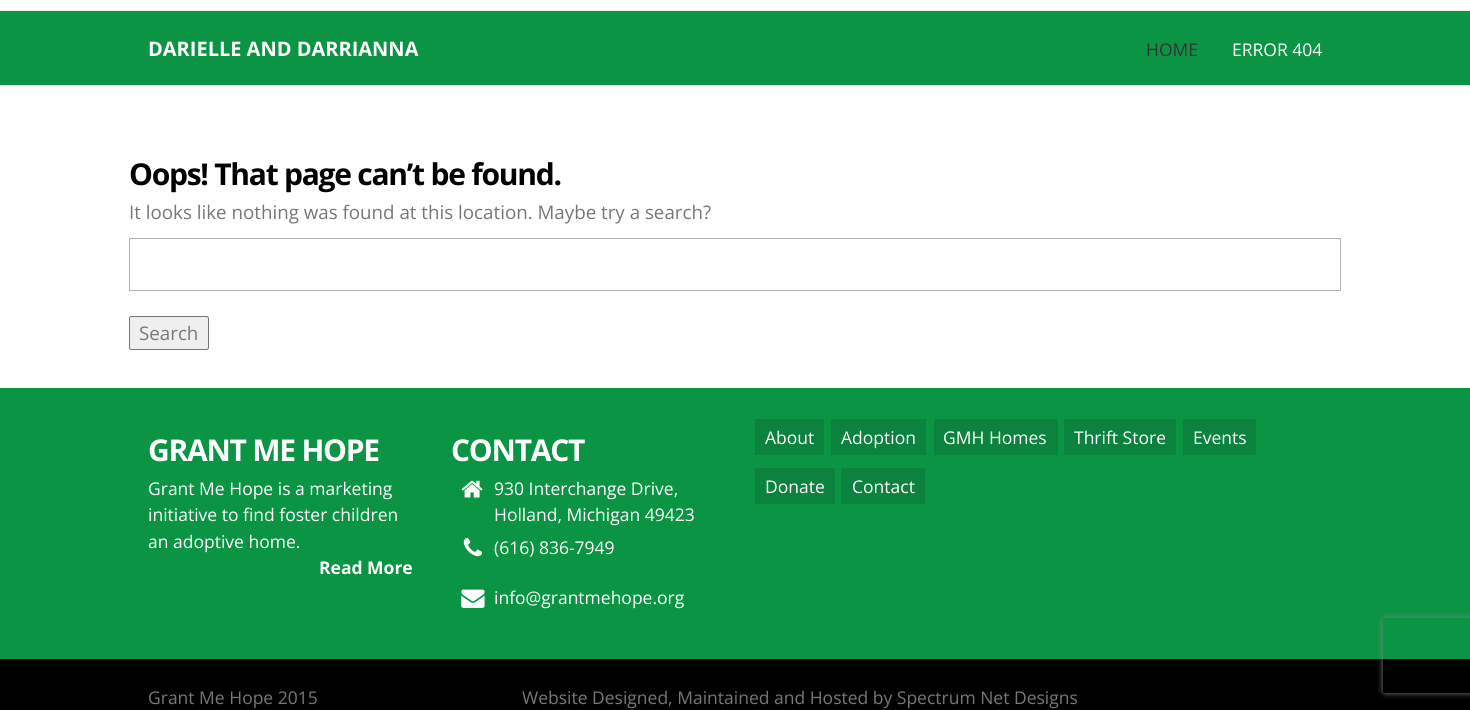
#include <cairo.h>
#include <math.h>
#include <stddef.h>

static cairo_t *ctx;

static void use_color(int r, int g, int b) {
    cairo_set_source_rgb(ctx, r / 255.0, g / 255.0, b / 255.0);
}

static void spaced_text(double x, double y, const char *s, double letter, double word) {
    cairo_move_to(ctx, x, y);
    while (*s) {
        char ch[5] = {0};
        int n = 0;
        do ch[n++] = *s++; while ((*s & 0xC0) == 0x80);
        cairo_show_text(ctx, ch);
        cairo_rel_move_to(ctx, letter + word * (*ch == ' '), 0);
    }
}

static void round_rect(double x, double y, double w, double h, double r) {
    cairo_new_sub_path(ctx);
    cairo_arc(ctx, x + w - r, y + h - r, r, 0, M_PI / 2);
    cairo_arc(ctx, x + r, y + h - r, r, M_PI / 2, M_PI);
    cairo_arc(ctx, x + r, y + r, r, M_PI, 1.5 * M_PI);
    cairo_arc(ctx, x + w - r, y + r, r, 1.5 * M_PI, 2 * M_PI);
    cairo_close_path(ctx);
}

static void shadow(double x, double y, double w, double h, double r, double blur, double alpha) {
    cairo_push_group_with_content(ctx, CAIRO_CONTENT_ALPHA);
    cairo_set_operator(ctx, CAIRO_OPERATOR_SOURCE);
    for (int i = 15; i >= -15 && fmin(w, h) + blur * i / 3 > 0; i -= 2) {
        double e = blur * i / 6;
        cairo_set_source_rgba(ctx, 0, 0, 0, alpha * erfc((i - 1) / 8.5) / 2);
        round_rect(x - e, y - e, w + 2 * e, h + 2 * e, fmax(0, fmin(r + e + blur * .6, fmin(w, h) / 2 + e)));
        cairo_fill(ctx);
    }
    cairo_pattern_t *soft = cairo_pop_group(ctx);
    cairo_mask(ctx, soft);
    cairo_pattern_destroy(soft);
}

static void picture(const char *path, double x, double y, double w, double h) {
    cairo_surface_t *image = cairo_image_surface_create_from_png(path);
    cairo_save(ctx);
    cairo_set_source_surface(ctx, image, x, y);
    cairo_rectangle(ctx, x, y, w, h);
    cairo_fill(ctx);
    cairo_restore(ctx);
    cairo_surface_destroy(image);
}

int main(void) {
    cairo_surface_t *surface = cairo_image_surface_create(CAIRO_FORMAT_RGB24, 1470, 710);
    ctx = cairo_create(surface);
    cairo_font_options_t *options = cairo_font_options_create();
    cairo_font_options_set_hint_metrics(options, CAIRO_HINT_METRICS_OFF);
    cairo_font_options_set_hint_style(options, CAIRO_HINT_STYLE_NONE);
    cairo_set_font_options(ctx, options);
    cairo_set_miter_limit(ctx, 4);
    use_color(255, 255, 255);
    cairo_paint(ctx);
    use_color(238, 238, 238);
    cairo_rectangle(ctx, 0, 10, 1470, 1);
    cairo_fill(ctx);
    use_color(10, 148, 68);
    cairo_rectangle(ctx, 0, 11, 1470, 74);
    cairo_fill(ctx);
    use_color(238, 238, 238);
    cairo_rectangle(ctx, 0, 85, 1470, 1);
    cairo_fill(ctx);
    cairo_select_font_face(ctx, "Open Sans", CAIRO_FONT_SLANT_NORMAL, CAIRO_FONT_WEIGHT_BOLD);
    cairo_set_font_size(ctx, 20);
    use_color(255, 255, 255);
    cairo_move_to(ctx, 148, 56);
    cairo_show_text(ctx, "DARIELLE AND DARRIANNA");
    cairo_select_font_face(ctx, "Open Sans", CAIRO_FONT_SLANT_NORMAL, CAIRO_FONT_WEIGHT_NORMAL);
    cairo_set_font_size(ctx, 17.5);
    use_color(51, 51, 51);
    cairo_move_to(ctx, 1146, 56);
    cairo_show_text(ctx, "HOME");
    use_color(255, 255, 255);
    cairo_move_to(ctx, 1232, 56);
    cairo_show_text(ctx, "ERROR 404");
    cairo_select_font_face(ctx, "Open Sans", CAIRO_FONT_SLANT_NORMAL, CAIRO_FONT_WEIGHT_BOLD);
    cairo_set_font_size(ctx, 30);
    use_color(0, 0, 0);
    spaced_text(129, 185, "Oops! That page can’t be found.", -1.25, 0);
    cairo_select_font_face(ctx, "Open Sans", CAIRO_FONT_SLANT_NORMAL, CAIRO_FONT_WEIGHT_NORMAL);
    cairo_set_font_size(ctx, 18.75);
    use_color(119, 119, 119);
    cairo_move_to(ctx, 129, 219);
    cairo_show_text(ctx, "It looks like nothing was found at this location. Maybe try a search?");
    cairo_rectangle(ctx, 129.5, 238.5, 1211, 52);
    use_color(178, 178, 178);
    cairo_set_line_width(ctx, 1);
    cairo_stroke(ctx);
    use_color(239, 239, 239);
    round_rect(129.5, 316.5, 79, 33, 2);
    cairo_fill_preserve(ctx);
    use_color(118, 118, 118);
    cairo_stroke(ctx);
    use_color(119, 119, 119);
    cairo_move_to(ctx, 139, 340);
    cairo_show_text(ctx, "Search");
    use_color(10, 148, 68);
    cairo_rectangle(ctx, 0, 388, 1470, 271);
    cairo_fill(ctx);
    cairo_select_font_face(ctx, "Open Sans", CAIRO_FONT_SLANT_NORMAL, CAIRO_FONT_WEIGHT_BOLD);
    cairo_set_font_size(ctx, 30);
    use_color(255, 255, 255);
    spaced_text(148, 461, "GRANT ME HOPE", -1.25, 0);
    cairo_select_font_face(ctx, "Open Sans", CAIRO_FONT_SLANT_NORMAL, CAIRO_FONT_WEIGHT_NORMAL);
    cairo_set_font_size(ctx, 17.5);
    cairo_move_to(ctx, 148, 495);
    cairo_show_text(ctx, "Grant Me Hope is a marketing");
    cairo_move_to(ctx, 148, 521);
    cairo_show_text(ctx, "initiative to find foster children");
    cairo_move_to(ctx, 148, 548);
    cairo_show_text(ctx, "an adoptive home.");
    cairo_select_font_face(ctx, "Open Sans", CAIRO_FONT_SLANT_NORMAL, CAIRO_FONT_WEIGHT_BOLD);
    cairo_move_to(ctx, 319, 574);
    cairo_show_text(ctx, "Read More");
    cairo_set_font_size(ctx, 30);
    spaced_text(451, 461, "CONTACT", -1.25, 0);
    picture("img1.png", 461, 480, 22, 18);
    cairo_select_font_face(ctx, "Open Sans", CAIRO_FONT_SLANT_NORMAL, CAIRO_FONT_WEIGHT_NORMAL);
    cairo_set_font_size(ctx, 17.5);
    cairo_move_to(ctx, 494, 495);
    cairo_show_text(ctx, "930 Interchange Drive,");
    cairo_move_to(ctx, 494, 521);
    cairo_show_text(ctx, "Holland, Michigan 49423");
    picture("img2.png", 463, 537, 20, 20);
    cairo_move_to(ctx, 494, 554);
    cairo_show_text(ctx, "(616) 836-7949");
    picture("img3.png", 461, 589, 24, 19);
    cairo_move_to(ctx, 494, 604);
    cairo_show_text(ctx, "info@grantmehope.org");
    use_color(11, 130, 61);
    cairo_rectangle(ctx, 755, 419, 69, 36);
    cairo_fill(ctx);
    use_color(255, 255, 255);
    cairo_move_to(ctx, 765, 444);
    cairo_show_text(ctx, "About");
    use_color(11, 130, 61);
    cairo_rectangle(ctx, 831, 419, 95, 36);
    cairo_fill(ctx);
    use_color(255, 255, 255);
    cairo_move_to(ctx, 841, 444);
    cairo_show_text(ctx, "Adoption");
    use_color(11, 130, 61);
    cairo_rectangle(ctx, 934, 419, 124, 36);
    cairo_fill(ctx);
    use_color(255, 255, 255);
    cairo_move_to(ctx, 943, 444);
    cairo_show_text(ctx, "GMH Homes");
    use_color(11, 130, 61);
    cairo_rectangle(ctx, 1064, 419, 112, 36);
    cairo_fill(ctx);
    use_color(255, 255, 255);
    cairo_move_to(ctx, 1074, 444);
    cairo_show_text(ctx, "Thrift Store");
    use_color(11, 130, 61);
    cairo_rectangle(ctx, 1183, 419, 73, 36);
    cairo_fill(ctx);
    use_color(255, 255, 255);
    cairo_move_to(ctx, 1193, 444);
    cairo_show_text(ctx, "Events");
    use_color(11, 130, 61);
    cairo_rectangle(ctx, 755, 468, 80, 36);
    cairo_fill(ctx);
    use_color(255, 255, 255);
    cairo_move_to(ctx, 765, 493);
    cairo_show_text(ctx, "Donate");
    use_color(11, 130, 61);
    cairo_rectangle(ctx, 841, 468, 84, 36);
    cairo_fill(ctx);
    use_color(255, 255, 255);
    cairo_move_to(ctx, 852, 493);
    cairo_show_text(ctx, "Contact");
    use_color(0, 0, 0);
    cairo_rectangle(ctx, 0, 659, 1470, 51);
    cairo_fill(ctx);
    use_color(119, 119, 119);
    cairo_move_to(ctx, 148, 704);
    cairo_show_text(ctx, "Grant Me Hope 2015");
    cairo_move_to(ctx, 522, 704);
    cairo_show_text(ctx, "Website Designed, Maintained and Hosted by Spectrum Net Designs");
    cairo_save(ctx);
    cairo_set_fill_rule(ctx, CAIRO_FILL_RULE_EVEN_ODD);
    cairo_new_path(ctx);
    cairo_move_to(ctx, 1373, 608);
    cairo_line_to(ctx, 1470, 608);
    cairo_line_to(ctx, 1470, 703);
    cairo_line_to(ctx, 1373, 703);
    cairo_close_path(ctx);
    cairo_move_to(ctx, 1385.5, 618);
    cairo_line_to(ctx, 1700.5, 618);
    cairo_curve_to(ctx, 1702, 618, 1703, 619, 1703, 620.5);
    cairo_line_to(ctx, 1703, 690.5);
    cairo_curve_to(ctx, 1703, 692, 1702, 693, 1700.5, 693);
    cairo_line_to(ctx, 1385.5, 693);
    cairo_curve_to(ctx, 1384, 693, 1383, 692, 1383, 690.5);
    cairo_line_to(ctx, 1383, 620.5);
    cairo_curve_to(ctx, 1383, 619, 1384, 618, 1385.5, 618);
    cairo_close_path(ctx);
    cairo_clip(ctx);
    use_color(128, 128, 128);
    shadow(1383, 618, 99, 75, 2.5, 3, 1);
    cairo_restore(ctx);
    cairo_surface_write_to_png(surface, "result.png");
    cairo_font_options_destroy(options);
    cairo_destroy(ctx);
    cairo_surface_destroy(surface);
    return 0;
}
